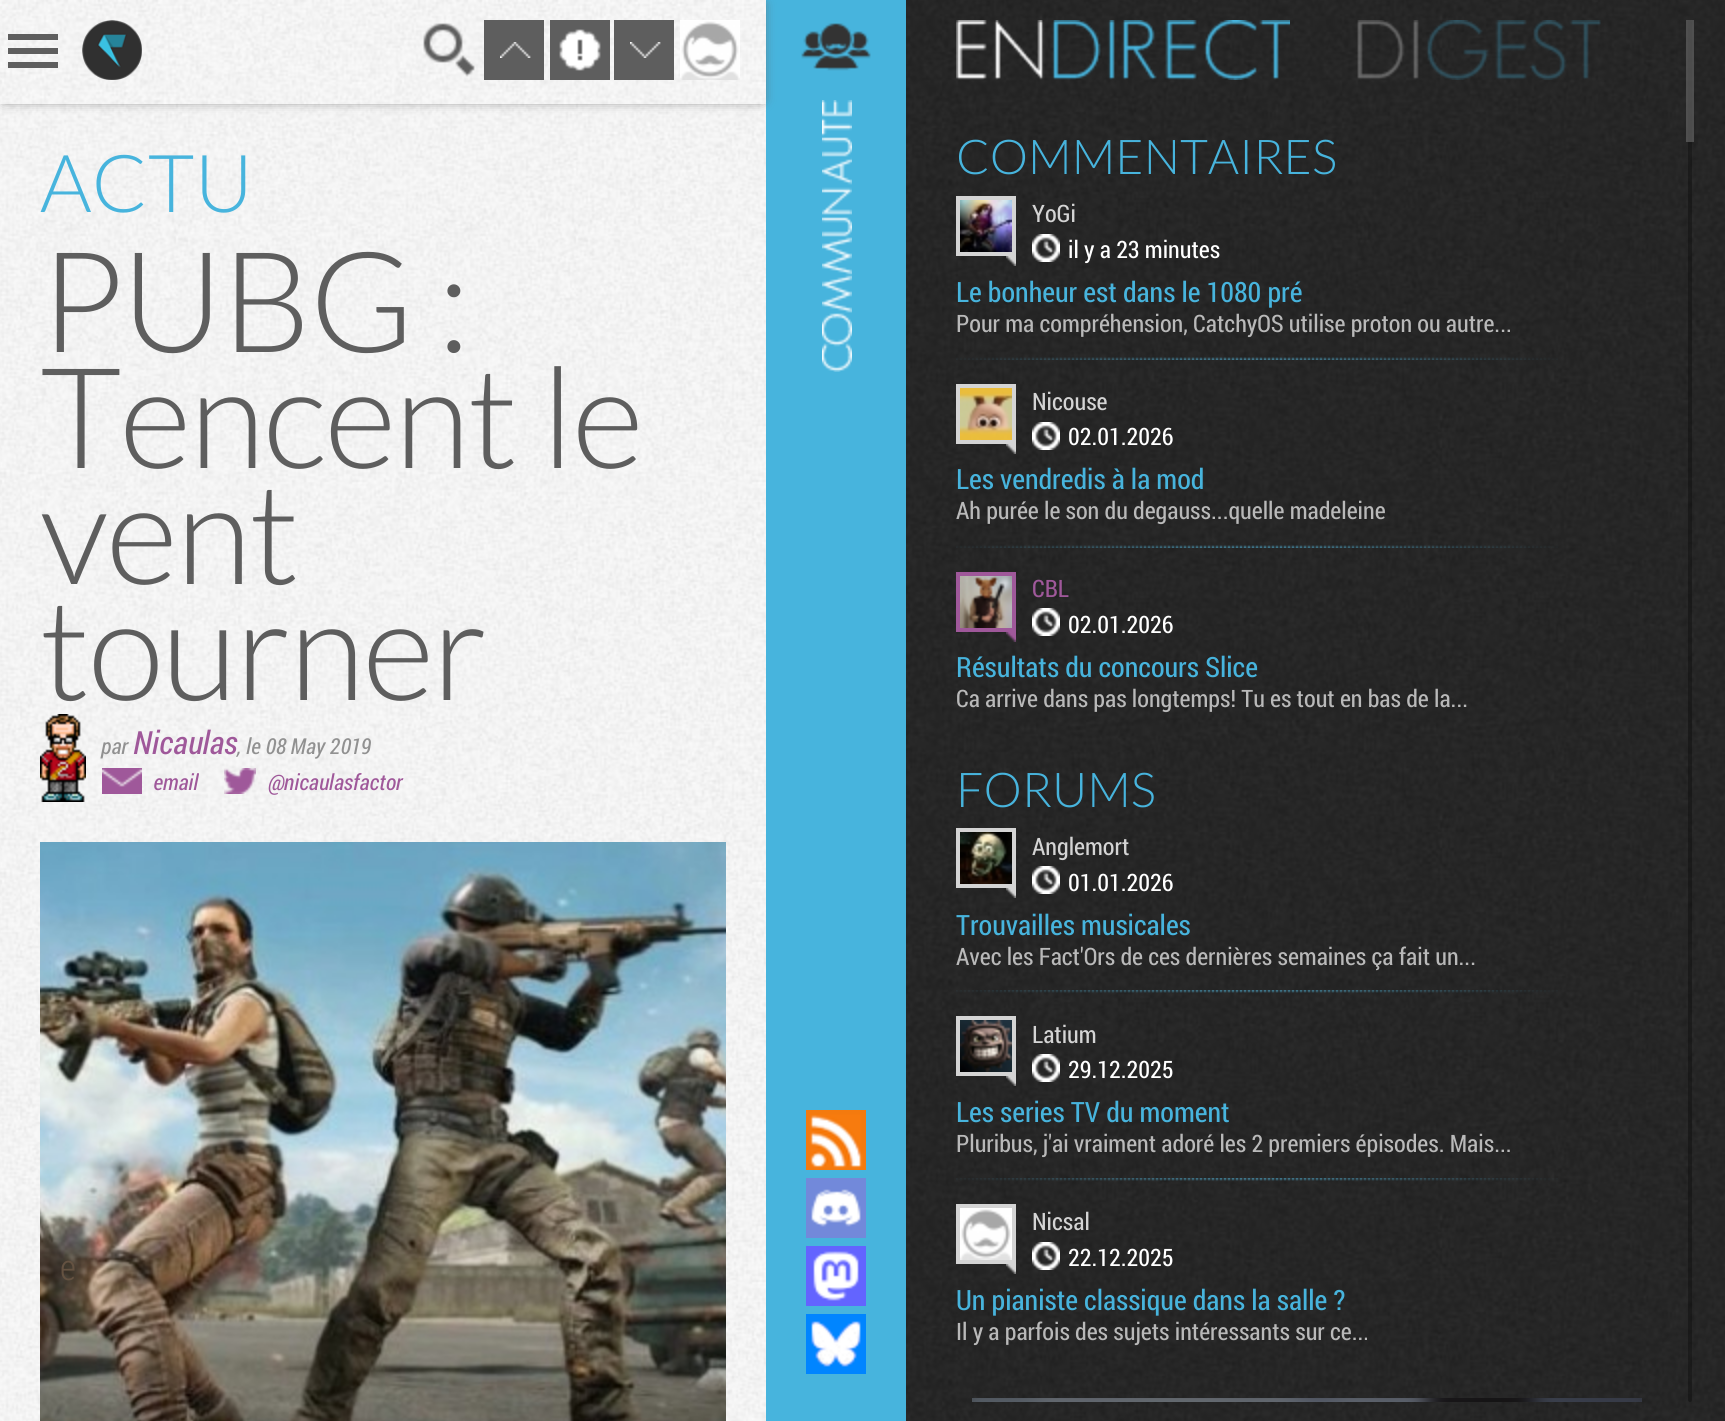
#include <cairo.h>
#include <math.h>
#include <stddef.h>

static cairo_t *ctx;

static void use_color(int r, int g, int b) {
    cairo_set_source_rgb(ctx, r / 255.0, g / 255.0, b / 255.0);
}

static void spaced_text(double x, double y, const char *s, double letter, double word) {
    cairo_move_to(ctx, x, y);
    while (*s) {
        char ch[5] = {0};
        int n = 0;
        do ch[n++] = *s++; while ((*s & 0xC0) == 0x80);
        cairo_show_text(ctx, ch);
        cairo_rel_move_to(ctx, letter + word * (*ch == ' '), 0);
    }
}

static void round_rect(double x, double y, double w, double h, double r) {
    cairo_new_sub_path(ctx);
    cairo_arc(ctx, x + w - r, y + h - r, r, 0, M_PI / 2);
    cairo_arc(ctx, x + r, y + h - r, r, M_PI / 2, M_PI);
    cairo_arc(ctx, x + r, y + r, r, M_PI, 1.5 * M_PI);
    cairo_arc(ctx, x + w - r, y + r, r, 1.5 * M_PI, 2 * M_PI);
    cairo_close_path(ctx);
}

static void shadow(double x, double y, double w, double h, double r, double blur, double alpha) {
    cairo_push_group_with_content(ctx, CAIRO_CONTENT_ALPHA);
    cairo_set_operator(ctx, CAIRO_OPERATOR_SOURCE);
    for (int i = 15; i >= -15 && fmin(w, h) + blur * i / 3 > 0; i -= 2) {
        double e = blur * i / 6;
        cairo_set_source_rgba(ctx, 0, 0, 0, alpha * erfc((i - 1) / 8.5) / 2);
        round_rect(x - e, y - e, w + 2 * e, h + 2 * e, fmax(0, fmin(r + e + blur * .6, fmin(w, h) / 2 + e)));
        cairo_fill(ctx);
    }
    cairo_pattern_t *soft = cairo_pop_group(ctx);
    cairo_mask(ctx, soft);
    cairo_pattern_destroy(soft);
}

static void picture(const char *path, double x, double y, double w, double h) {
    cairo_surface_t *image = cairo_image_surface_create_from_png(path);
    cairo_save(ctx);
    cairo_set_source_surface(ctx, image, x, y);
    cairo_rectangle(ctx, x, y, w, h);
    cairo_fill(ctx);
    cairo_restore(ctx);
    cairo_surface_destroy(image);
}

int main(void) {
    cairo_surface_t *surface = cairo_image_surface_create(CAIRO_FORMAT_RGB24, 1725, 1421);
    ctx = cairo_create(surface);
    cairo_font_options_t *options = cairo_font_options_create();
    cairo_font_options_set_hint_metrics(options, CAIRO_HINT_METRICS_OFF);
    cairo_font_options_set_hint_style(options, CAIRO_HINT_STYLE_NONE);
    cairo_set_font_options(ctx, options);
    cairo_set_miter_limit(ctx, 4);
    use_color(255, 255, 255);
    cairo_paint(ctx);
    picture("img1.png", 0, 104, 766, 1317);
    use_color(71, 180, 221);
    cairo_rectangle(ctx, 766, 0, 140, 1421);
    cairo_fill(ctx);
    use_color(94, 94, 94);
    shadow(4, 4, 758, 96, 0, 6, 1);
    picture("img2.png", 0, 0, 766, 104);
    use_color(94, 94, 94);
    cairo_rectangle(ctx, 8, 34, 50, 6);
    cairo_fill(ctx);
    cairo_rectangle(ctx, 8, 48, 50, 6);
    cairo_fill(ctx);
    cairo_rectangle(ctx, 8, 62, 50, 6);
    cairo_fill(ctx);
    picture("img3.png", 82, 20, 60, 60);
    picture("img4.png", 423, 23, 52, 54);
    cairo_rectangle(ctx, 484, 20, 60, 60);
    cairo_fill(ctx);
    picture("img5.png", 500, 42, 31, 16);
    cairo_rectangle(ctx, 550, 20, 60, 60);
    cairo_fill(ctx);
    picture("img6.png", 559, 29, 42, 42);
    cairo_rectangle(ctx, 614, 20, 60, 60);
    cairo_fill(ctx);
    picture("img7.png", 630, 42, 31, 16);
    picture("img8.png", 680, 20, 60, 60);
    cairo_select_font_face(ctx, "Lato Light", CAIRO_FONT_SLANT_NORMAL, CAIRO_FONT_WEIGHT_NORMAL);
    cairo_set_font_size(ctx, 80);
    use_color(71, 180, 221);
    cairo_move_to(ctx, 40, 212);
    cairo_show_text(ctx, "ACTU");
    cairo_set_font_size(ctx, 140);
    use_color(94, 94, 94);
    spaced_text(40, 352, "PUBG :", -2, 0);
    spaced_text(40, 468, "Tencent le", -2, 0);
    spaced_text(40, 584, "vent", -2, 0);
    spaced_text(40, 700, "tourner", -2, 0);
    picture("img9.png", 40, 714, 46, 88);
    cairo_select_font_face(ctx, "Roboto Condensed", CAIRO_FONT_SLANT_ITALIC, CAIRO_FONT_WEIGHT_NORMAL);
    cairo_set_font_size(ctx, 22);
    use_color(145, 145, 145);
    cairo_move_to(ctx, 101, 754);
    cairo_show_text(ctx, "par");
    cairo_set_font_size(ctx, 32);
    use_color(159, 88, 154);
    cairo_move_to(ctx, 133, 754);
    cairo_show_text(ctx, "Nicaulas");
    cairo_set_font_size(ctx, 22);
    use_color(145, 145, 145);
    cairo_move_to(ctx, 237, 754);
    cairo_show_text(ctx, ", le 08 May 2019");
    picture("img10.png", 102, 768, 40, 26);
    use_color(159, 88, 154);
    cairo_move_to(ctx, 153, 790);
    cairo_show_text(ctx, "email");
    picture("img11.png", 224, 768, 32, 26);
    cairo_move_to(ctx, 267, 790);
    cairo_show_text(ctx, "@nicaulasfactor");
    picture("img12.png", 40, 842, 686, 579);
    picture("img13.png", 906, 0, 819, 1421);
    picture("img14.png", 801, 23, 70, 48);
    picture("img15.png", 822, 100, 30, 272);
    picture("img16.png", 806, 1110, 60, 60);
    picture("img17.png", 806, 1178, 60, 60);
    picture("img18.png", 806, 1246, 60, 60);
    picture("img19.png", 806, 1314, 60, 60);
    picture("img20.png", 956, 20, 334, 60);
    picture("img21.png", 1357, 20, 244, 60);
    cairo_select_font_face(ctx, "Lato Light", CAIRO_FONT_SLANT_NORMAL, CAIRO_FONT_WEIGHT_NORMAL);
    cairo_set_font_size(ctx, 48);
    use_color(71, 180, 221);
    cairo_move_to(ctx, 956, 174);
    cairo_show_text(ctx, "COMMENTAIRES");
    cairo_rectangle(ctx, 958, 198, 56, 56);
    use_color(212, 212, 212);
    cairo_set_line_width(ctx, 4);
    cairo_stroke(ctx);
    picture("img22.png", 960, 200, 52, 52);
    picture("img23.png", 1006, 256, 10, 10);
    cairo_select_font_face(ctx, "Roboto Condensed", CAIRO_FONT_SLANT_NORMAL, CAIRO_FONT_WEIGHT_NORMAL);
    cairo_set_font_size(ctx, 24);
    cairo_move_to(ctx, 1032, 222);
    cairo_show_text(ctx, "YoGi");
    picture("img24.png", 1032, 234, 28, 28);
    use_color(255, 255, 255);
    cairo_move_to(ctx, 1068, 258);
    cairo_show_text(ctx, "il y a 23 minutes");
    cairo_set_font_size(ctx, 28);
    use_color(71, 180, 221);
    cairo_move_to(ctx, 956, 302);
    cairo_show_text(ctx, "Le bonheur est dans le 1080 pré");
    cairo_set_font_size(ctx, 24);
    use_color(185, 185, 185);
    cairo_move_to(ctx, 956, 332);
    cairo_show_text(ctx, "Pour ma compréhension, CatchyOS utilise proton ou autre...");
    picture("img25.png", 956, 357, 602, 3);
    cairo_rectangle(ctx, 958, 386, 56, 56);
    use_color(212, 212, 212);
    cairo_stroke(ctx);
    picture("img26.png", 960, 388, 52, 52);
    picture("img27.png", 1006, 444, 10, 10);
    cairo_move_to(ctx, 1032, 410);
    cairo_show_text(ctx, "Nicouse");
    picture("img28.png", 1032, 422, 28, 28);
    use_color(255, 255, 255);
    cairo_move_to(ctx, 1068, 445);
    cairo_show_text(ctx, "02.01.2026");
    cairo_set_font_size(ctx, 28);
    use_color(71, 180, 221);
    cairo_move_to(ctx, 956, 489);
    cairo_show_text(ctx, "Les vendredis à la mod");
    cairo_set_font_size(ctx, 24);
    use_color(185, 185, 185);
    cairo_move_to(ctx, 956, 519);
    cairo_show_text(ctx, "Ah purée le son du degauss...quelle madeleine");
    picture("img29.png", 956, 545, 602, 3);
    cairo_rectangle(ctx, 958, 574, 56, 56);
    use_color(159, 88, 154);
    cairo_stroke(ctx);
    picture("img30.png", 960, 576, 52, 52);
    picture("img31.png", 1006, 632, 10, 10);
    cairo_move_to(ctx, 1032, 597);
    cairo_show_text(ctx, "CBL");
    picture("img32.png", 1032, 608, 28, 28);
    use_color(255, 255, 255);
    cairo_move_to(ctx, 1068, 633);
    cairo_show_text(ctx, "02.01.2026");
    cairo_set_font_size(ctx, 28);
    use_color(71, 180, 221);
    cairo_move_to(ctx, 956, 677);
    cairo_show_text(ctx, "Résultats du concours Slice");
    cairo_set_font_size(ctx, 24);
    use_color(185, 185, 185);
    cairo_move_to(ctx, 956, 707);
    cairo_show_text(ctx, "Ca arrive dans pas longtemps! Tu es tout en bas de la...");
    cairo_select_font_face(ctx, "Lato Light", CAIRO_FONT_SLANT_NORMAL, CAIRO_FONT_WEIGHT_NORMAL);
    cairo_set_font_size(ctx, 48);
    use_color(71, 180, 221);
    cairo_move_to(ctx, 956, 807);
    cairo_show_text(ctx, "FORUMS");
    cairo_rectangle(ctx, 958, 830, 56, 56);
    use_color(212, 212, 212);
    cairo_stroke(ctx);
    picture("img33.png", 960, 832, 52, 52);
    picture("img34.png", 1006, 888, 10, 10);
    cairo_select_font_face(ctx, "Roboto Condensed", CAIRO_FONT_SLANT_NORMAL, CAIRO_FONT_WEIGHT_NORMAL);
    cairo_set_font_size(ctx, 24);
    cairo_move_to(ctx, 1032, 855);
    cairo_show_text(ctx, "Anglemort");
    picture("img35.png", 1032, 866, 28, 28);
    use_color(255, 255, 255);
    cairo_move_to(ctx, 1068, 891);
    cairo_show_text(ctx, "01.01.2026");
    cairo_set_font_size(ctx, 28);
    use_color(71, 180, 221);
    cairo_move_to(ctx, 956, 935);
    cairo_show_text(ctx, "Trouvailles musicales");
    cairo_set_font_size(ctx, 24);
    use_color(185, 185, 185);
    cairo_move_to(ctx, 956, 965);
    cairo_show_text(ctx, "Avec les Fact'Ors de ces dernières semaines ça fait un...");
    picture("img36.png", 956, 990, 602, 3);
    cairo_rectangle(ctx, 958, 1018, 56, 56);
    use_color(212, 212, 212);
    cairo_stroke(ctx);
    picture("img37.png", 960, 1020, 52, 52);
    picture("img38.png", 1006, 1076, 10, 10);
    cairo_move_to(ctx, 1032, 1043);
    cairo_show_text(ctx, "Latium");
    picture("img39.png", 1032, 1054, 28, 28);
    use_color(255, 255, 255);
    cairo_move_to(ctx, 1068, 1078);
    cairo_show_text(ctx, "29.12.2025");
    cairo_set_font_size(ctx, 28);
    use_color(71, 180, 221);
    cairo_move_to(ctx, 956, 1122);
    cairo_show_text(ctx, "Les series TV du moment");
    cairo_set_font_size(ctx, 24);
    use_color(185, 185, 185);
    cairo_move_to(ctx, 956, 1152);
    cairo_show_text(ctx, "Pluribus, j'ai vraiment adoré les 2 premiers épisodes. Mais...");
    picture("img40.png", 956, 1178, 602, 3);
    cairo_rectangle(ctx, 958, 1206, 56, 56);
    use_color(212, 212, 212);
    cairo_stroke(ctx);
    picture("img41.png", 960, 1208, 52, 52);
    picture("img42.png", 1006, 1264, 10, 10);
    cairo_move_to(ctx, 1032, 1230);
    cairo_show_text(ctx, "Nicsal");
    picture("img43.png", 1032, 1242, 28, 28);
    use_color(255, 255, 255);
    cairo_move_to(ctx, 1068, 1266);
    cairo_show_text(ctx, "22.12.2025");
    cairo_set_font_size(ctx, 28);
    use_color(71, 180, 221);
    cairo_move_to(ctx, 956, 1310);
    cairo_show_text(ctx, "Un pianiste classique dans la salle ?");
    cairo_set_font_size(ctx, 24);
    use_color(185, 185, 185);
    cairo_move_to(ctx, 956, 1340);
    cairo_show_text(ctx, "Il y a parfois des sujets intéressants sur ce...");
    use_color(38, 38, 38);
    cairo_rectangle(ctx, 972, 1398, 670, 4);
    cairo_fill(ctx);
    picture("img44.png", 972, 1398, 670, 4);
    cairo_set_source_rgba(ctx, 0, 0, 0, 0.3);
    round_rect(1688, 20, 4, 1382, 2);
    cairo_fill(ctx);
    cairo_set_source_rgba(ctx, 0.369, 0.369, 0.369, 0.75);
    cairo_rectangle(ctx, 1686, 20, 8, 122);
    cairo_fill(ctx);
    cairo_select_font_face(ctx, "Roboto Condensed Light", CAIRO_FONT_SLANT_NORMAL, CAIRO_FONT_WEIGHT_NORMAL);
    cairo_set_font_size(ctx, 36);
    use_color(100, 82, 65);
    cairo_move_to(ctx, 60, 1280);
    cairo_show_text(ctx, "e");
    cairo_surface_write_to_png(surface, "result.png");
    cairo_font_options_destroy(options);
    cairo_destroy(ctx);
    cairo_surface_destroy(surface);
    return 0;
}
